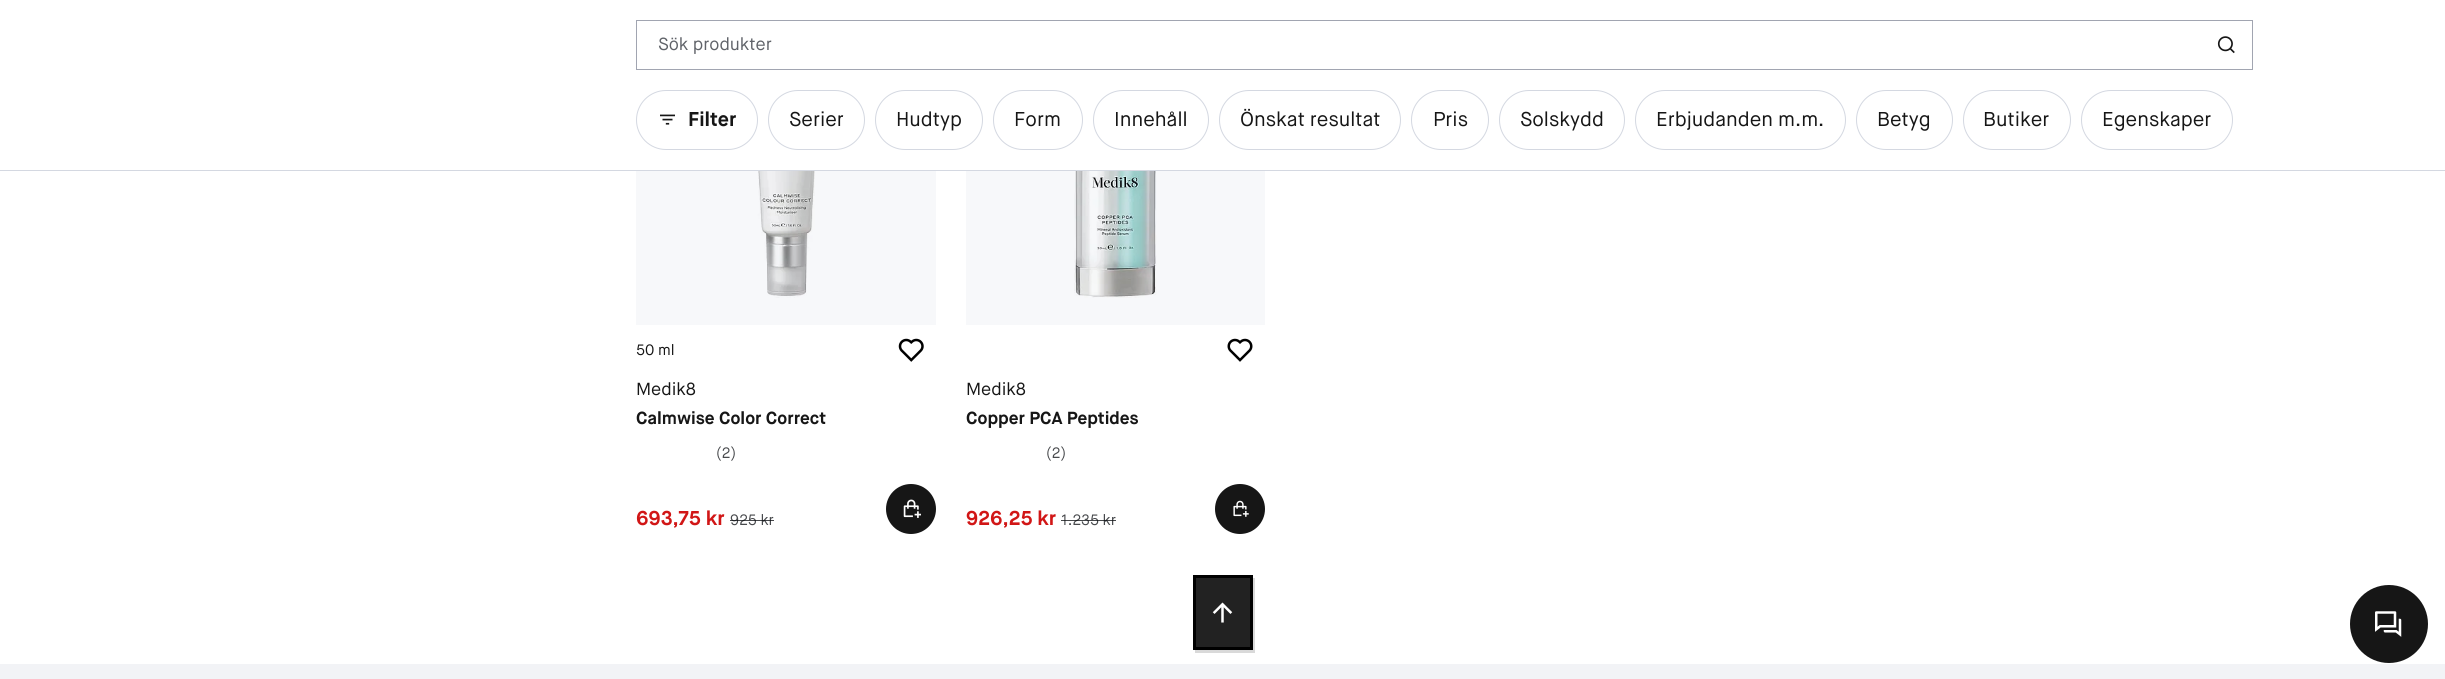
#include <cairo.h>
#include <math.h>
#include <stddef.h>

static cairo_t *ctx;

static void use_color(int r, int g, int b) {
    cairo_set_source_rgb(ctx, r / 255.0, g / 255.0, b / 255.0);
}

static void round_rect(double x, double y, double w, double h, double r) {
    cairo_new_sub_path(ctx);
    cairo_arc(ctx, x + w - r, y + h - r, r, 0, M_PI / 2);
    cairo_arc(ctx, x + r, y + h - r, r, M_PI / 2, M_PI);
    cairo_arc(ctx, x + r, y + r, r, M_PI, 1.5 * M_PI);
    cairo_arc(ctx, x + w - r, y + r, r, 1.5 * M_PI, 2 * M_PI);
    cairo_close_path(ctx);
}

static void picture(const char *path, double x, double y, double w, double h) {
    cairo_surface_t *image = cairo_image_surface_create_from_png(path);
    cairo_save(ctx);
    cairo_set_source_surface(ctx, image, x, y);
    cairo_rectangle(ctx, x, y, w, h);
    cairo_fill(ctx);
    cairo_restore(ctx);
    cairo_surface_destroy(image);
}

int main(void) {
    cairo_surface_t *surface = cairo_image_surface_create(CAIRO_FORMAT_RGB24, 2445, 679);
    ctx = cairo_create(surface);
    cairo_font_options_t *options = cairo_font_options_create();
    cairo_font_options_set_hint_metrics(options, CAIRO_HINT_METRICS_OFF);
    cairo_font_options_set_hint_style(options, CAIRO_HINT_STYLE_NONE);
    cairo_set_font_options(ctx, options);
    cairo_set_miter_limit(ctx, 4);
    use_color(255, 255, 255);
    cairo_paint(ctx);
    use_color(247, 248, 250);
    cairo_rectangle(ctx, 966, 171, 299, 154);
    cairo_fill(ctx);
    cairo_rectangle(ctx, 636, 171, 300, 154);
    cairo_fill(ctx);
    use_color(212, 216, 225);
    cairo_rectangle(ctx, 0, 170, 2445, 1);
    cairo_fill(ctx);
    cairo_rectangle(ctx, 636.5, 20.5, 1616, 49);
    use_color(161, 165, 177);
    cairo_set_line_width(ctx, 1);
    cairo_stroke(ctx);
    cairo_select_font_face(ctx, "Maison Neue", CAIRO_FONT_SLANT_NORMAL, CAIRO_FONT_WEIGHT_NORMAL);
    cairo_set_font_size(ctx, 17.5);
    use_color(96, 99, 105);
    cairo_move_to(ctx, 658, 50);
    cairo_show_text(ctx, "Sök produkter");
    picture("img1.png", 2217, 36, 18, 18);
    round_rect(636.5, 90.5, 121, 59, 29.5);
    use_color(212, 216, 225);
    cairo_stroke(ctx);
    picture("img2.png", 660, 114, 15, 11);
    cairo_select_font_face(ctx, "Maison Neue", CAIRO_FONT_SLANT_NORMAL, CAIRO_FONT_WEIGHT_BOLD);
    cairo_set_font_size(ctx, 20);
    use_color(22, 22, 22);
    cairo_move_to(ctx, 688, 126);
    cairo_show_text(ctx, "Filter");
    round_rect(768.5, 90.5, 96, 59, 29.5);
    use_color(212, 216, 225);
    cairo_stroke(ctx);
    cairo_select_font_face(ctx, "Maison Neue", CAIRO_FONT_SLANT_NORMAL, CAIRO_FONT_WEIGHT_NORMAL);
    use_color(22, 22, 22);
    cairo_move_to(ctx, 789, 126);
    cairo_show_text(ctx, "Serier");
    round_rect(875.5, 90.5, 107, 59, 29.5);
    use_color(212, 216, 225);
    cairo_stroke(ctx);
    use_color(22, 22, 22);
    cairo_move_to(ctx, 896, 126);
    cairo_show_text(ctx, "Hudtyp");
    round_rect(993.5, 90.5, 89, 59, 29.5);
    use_color(212, 216, 225);
    cairo_stroke(ctx);
    use_color(22, 22, 22);
    cairo_move_to(ctx, 1014, 126);
    cairo_show_text(ctx, "Form");
    round_rect(1093.5, 90.5, 115, 59, 29.5);
    use_color(212, 216, 225);
    cairo_stroke(ctx);
    use_color(22, 22, 22);
    cairo_move_to(ctx, 1114, 126);
    cairo_show_text(ctx, "Innehåll");
    round_rect(1219.5, 90.5, 181, 59, 29.5);
    use_color(212, 216, 225);
    cairo_stroke(ctx);
    use_color(22, 22, 22);
    cairo_move_to(ctx, 1240, 126);
    cairo_show_text(ctx, "Önskat resultat");
    round_rect(1411.5, 90.5, 77, 59, 29.5);
    use_color(212, 216, 225);
    cairo_stroke(ctx);
    use_color(22, 22, 22);
    cairo_move_to(ctx, 1433, 126);
    cairo_show_text(ctx, "Pris");
    round_rect(1499.5, 90.5, 125, 59, 29.5);
    use_color(212, 216, 225);
    cairo_stroke(ctx);
    use_color(22, 22, 22);
    cairo_move_to(ctx, 1520, 126);
    cairo_show_text(ctx, "Solskydd");
    round_rect(1635.5, 90.5, 210, 59, 29.5);
    use_color(212, 216, 225);
    cairo_stroke(ctx);
    use_color(22, 22, 22);
    cairo_move_to(ctx, 1656, 126);
    cairo_show_text(ctx, "Erbjudanden m.m.");
    round_rect(1856.5, 90.5, 96, 59, 29.5);
    use_color(212, 216, 225);
    cairo_stroke(ctx);
    use_color(22, 22, 22);
    cairo_move_to(ctx, 1877, 126);
    cairo_show_text(ctx, "Betyg");
    round_rect(1963.5, 90.5, 107, 59, 29.5);
    use_color(212, 216, 225);
    cairo_stroke(ctx);
    use_color(22, 22, 22);
    cairo_move_to(ctx, 1983, 126);
    cairo_show_text(ctx, "Butiker");
    round_rect(2081.5, 90.5, 151, 59, 29.5);
    use_color(212, 216, 225);
    cairo_stroke(ctx);
    use_color(22, 22, 22);
    cairo_move_to(ctx, 2102, 126);
    cairo_show_text(ctx, "Egenskaper");
    picture("img3.png", 747, 171, 78, 127);
    cairo_set_font_size(ctx, 15);
    cairo_move_to(ctx, 636, 355);
    cairo_show_text(ctx, "50 ml");
    picture("img4.png", 898, 338, 26, 24);
    cairo_set_font_size(ctx, 17.5);
    cairo_move_to(ctx, 636, 395);
    cairo_show_text(ctx, "Medik8");
    cairo_select_font_face(ctx, "Maison Neue", CAIRO_FONT_SLANT_NORMAL, CAIRO_FONT_WEIGHT_BOLD);
    cairo_move_to(ctx, 636, 424);
    cairo_show_text(ctx, "Calmwise Color Correct");
    cairo_select_font_face(ctx, "Maison Neue", CAIRO_FONT_SLANT_NORMAL, CAIRO_FONT_WEIGHT_NORMAL);
    cairo_set_font_size(ctx, 15);
    use_color(71, 73, 76);
    cairo_move_to(ctx, 716, 458);
    cairo_show_text(ctx, "(2)");
    cairo_select_font_face(ctx, "Maison Neue", CAIRO_FONT_SLANT_NORMAL, CAIRO_FONT_WEIGHT_BOLD);
    cairo_set_font_size(ctx, 20);
    use_color(209, 22, 22);
    cairo_move_to(ctx, 636, 525);
    cairo_show_text(ctx, "693,75 kr");
    cairo_select_font_face(ctx, "Maison Neue", CAIRO_FONT_SLANT_NORMAL, CAIRO_FONT_WEIGHT_NORMAL);
    cairo_set_font_size(ctx, 15);
    use_color(71, 73, 76);
    cairo_move_to(ctx, 730, 525);
    cairo_show_text(ctx, "925 kr");
    cairo_set_source_rgba(ctx, 0.051, 0.059, 0.075, 0.76);
    cairo_rectangle(ctx, 730, 520, 44, 1);
    cairo_fill(ctx);
    use_color(22, 22, 22);
    cairo_arc(ctx, 911, 509, 25, 0, 2 * M_PI);
    cairo_fill(ctx);
    picture("img5.png", 903, 499, 18, 19);
    picture("img6.png", 1074, 171, 83, 127);
    picture("img7.png", 1227, 338, 26, 24);
    cairo_set_font_size(ctx, 17.5);
    cairo_move_to(ctx, 966, 395);
    cairo_show_text(ctx, "Medik8");
    cairo_select_font_face(ctx, "Maison Neue", CAIRO_FONT_SLANT_NORMAL, CAIRO_FONT_WEIGHT_BOLD);
    cairo_move_to(ctx, 966, 424);
    cairo_show_text(ctx, "Copper PCA Peptides");
    cairo_select_font_face(ctx, "Maison Neue", CAIRO_FONT_SLANT_NORMAL, CAIRO_FONT_WEIGHT_NORMAL);
    cairo_set_font_size(ctx, 15);
    use_color(71, 73, 76);
    cairo_move_to(ctx, 1046, 458);
    cairo_show_text(ctx, "(2)");
    cairo_select_font_face(ctx, "Maison Neue", CAIRO_FONT_SLANT_NORMAL, CAIRO_FONT_WEIGHT_BOLD);
    cairo_set_font_size(ctx, 20);
    use_color(209, 22, 22);
    cairo_move_to(ctx, 966, 525);
    cairo_show_text(ctx, "926,25 kr");
    cairo_select_font_face(ctx, "Maison Neue", CAIRO_FONT_SLANT_NORMAL, CAIRO_FONT_WEIGHT_NORMAL);
    cairo_set_font_size(ctx, 15);
    use_color(71, 73, 76);
    cairo_move_to(ctx, 1061, 525);
    cairo_show_text(ctx, "1.235 kr");
    cairo_set_source_rgba(ctx, 0.051, 0.059, 0.075, 0.76);
    cairo_rectangle(ctx, 1061, 520, 55, 1);
    cairo_fill(ctx);
    use_color(22, 22, 22);
    cairo_arc(ctx, 1240, 509, 25, 0, 2 * M_PI);
    cairo_fill(ctx);
    picture("img8.png", 1233, 500, 16, 17);
    use_color(217, 217, 217);
    cairo_new_path(ctx);
    cairo_move_to(ctx, 1195, 650);
    cairo_line_to(ctx, 1195, 653);
    cairo_line_to(ctx, 1255, 653);
    cairo_line_to(ctx, 1255, 578);
    cairo_line_to(ctx, 1252, 578);
    cairo_line_to(ctx, 1252, 650);
    cairo_close_path(ctx);
    cairo_fill(ctx);
    use_color(34, 34, 34);
    cairo_rectangle(ctx, 1194.5, 576.5, 57, 72);
    cairo_fill_preserve(ctx);
    use_color(0, 0, 0);
    cairo_set_line_width(ctx, 3);
    cairo_stroke(ctx);
    picture("img9.png", 1212, 602, 21, 21);
    use_color(22, 22, 22);
    cairo_arc(ctx, 2389, 624, 39, 0, 2 * M_PI);
    cairo_fill(ctx);
    picture("img10.png", 2375, 611, 27, 26);
    use_color(242, 243, 246);
    cairo_rectangle(ctx, 0, 664, 2445, 15);
    cairo_fill(ctx);
    cairo_surface_write_to_png(surface, "result.png");
    cairo_font_options_destroy(options);
    cairo_destroy(ctx);
    cairo_surface_destroy(surface);
    return 0;
}
